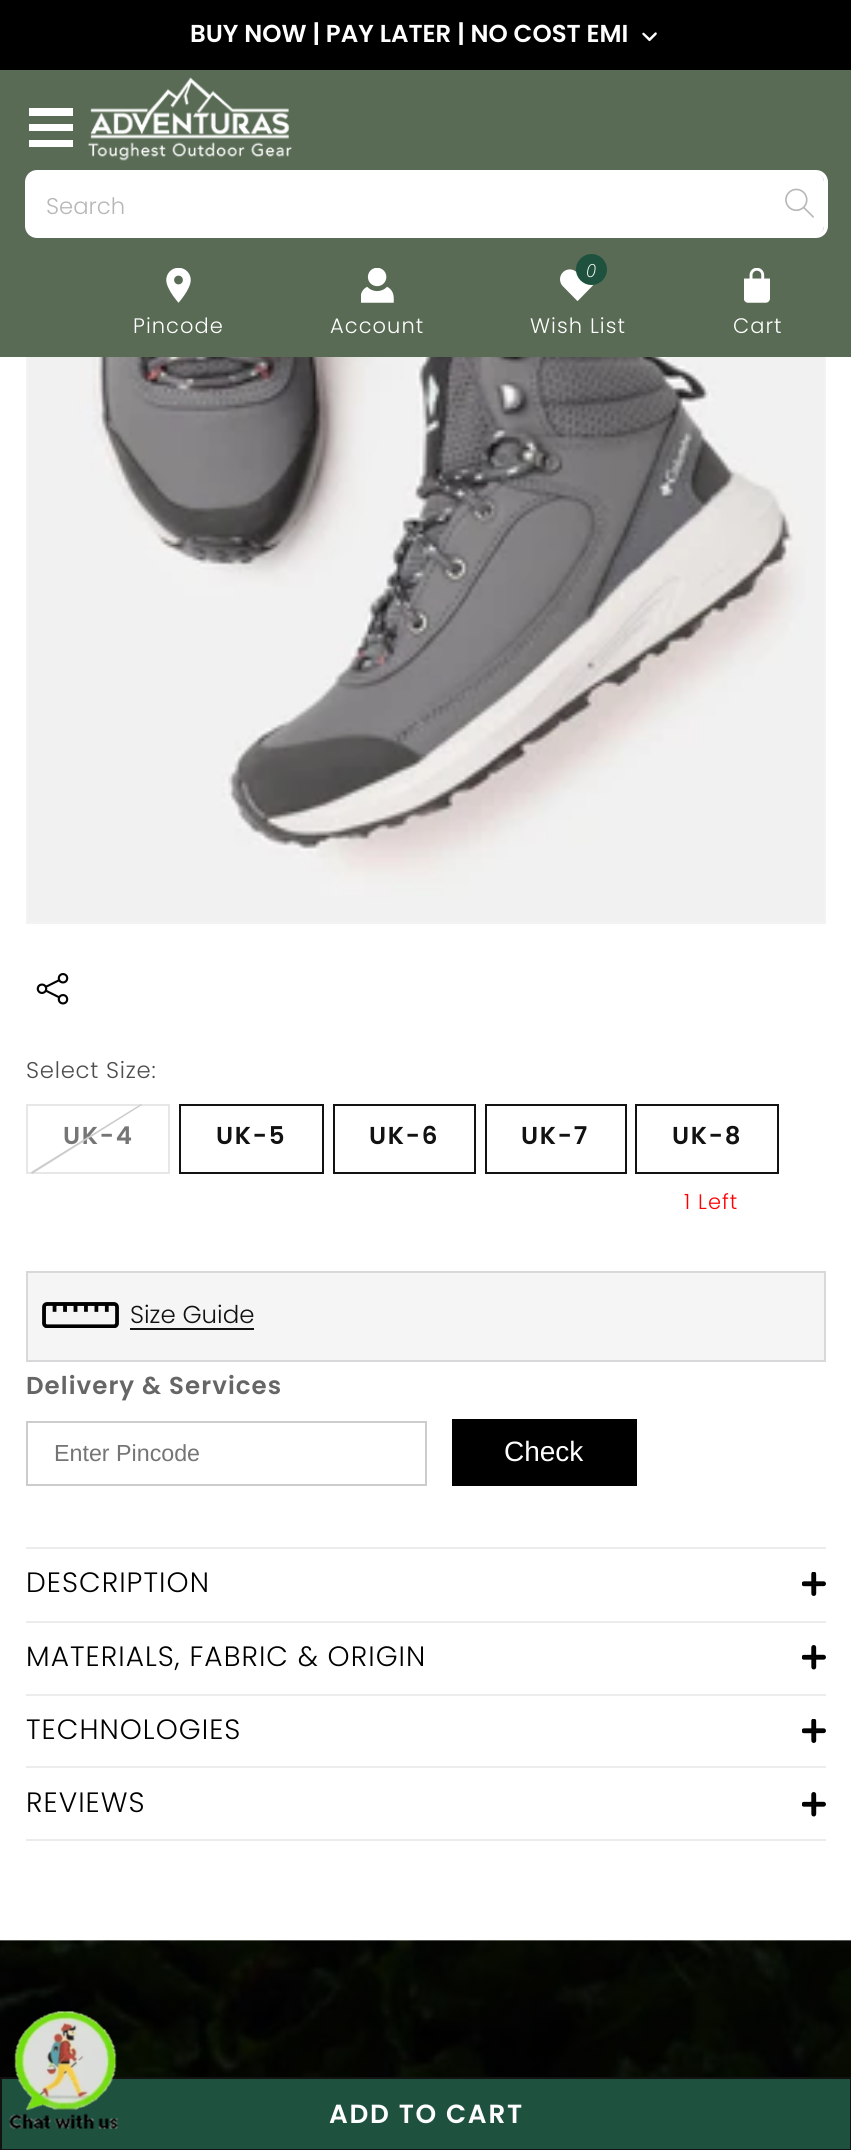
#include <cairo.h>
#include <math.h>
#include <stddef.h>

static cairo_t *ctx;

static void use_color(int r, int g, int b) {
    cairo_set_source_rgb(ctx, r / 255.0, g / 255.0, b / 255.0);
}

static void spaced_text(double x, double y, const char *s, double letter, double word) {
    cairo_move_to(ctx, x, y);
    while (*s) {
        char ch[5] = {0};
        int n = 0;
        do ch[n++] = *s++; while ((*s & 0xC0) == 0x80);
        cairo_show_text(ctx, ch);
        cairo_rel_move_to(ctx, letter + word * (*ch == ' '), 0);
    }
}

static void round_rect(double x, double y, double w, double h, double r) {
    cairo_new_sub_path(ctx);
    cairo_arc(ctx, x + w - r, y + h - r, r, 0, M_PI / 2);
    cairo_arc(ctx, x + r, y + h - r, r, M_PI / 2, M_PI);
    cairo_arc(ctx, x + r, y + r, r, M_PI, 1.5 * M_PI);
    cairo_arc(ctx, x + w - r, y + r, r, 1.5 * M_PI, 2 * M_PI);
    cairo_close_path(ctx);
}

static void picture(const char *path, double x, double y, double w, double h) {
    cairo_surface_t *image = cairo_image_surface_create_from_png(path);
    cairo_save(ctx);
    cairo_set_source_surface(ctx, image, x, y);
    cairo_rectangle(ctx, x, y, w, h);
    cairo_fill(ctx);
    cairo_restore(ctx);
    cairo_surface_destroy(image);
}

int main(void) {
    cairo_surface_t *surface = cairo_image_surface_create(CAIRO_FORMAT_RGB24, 851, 2150);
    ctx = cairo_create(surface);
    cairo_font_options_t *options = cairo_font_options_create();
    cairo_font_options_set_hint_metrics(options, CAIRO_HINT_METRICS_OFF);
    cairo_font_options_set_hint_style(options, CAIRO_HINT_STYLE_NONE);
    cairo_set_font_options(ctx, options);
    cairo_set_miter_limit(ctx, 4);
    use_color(255, 255, 255);
    cairo_paint(ctx);
    cairo_rectangle(ctx, 27, -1, 798, 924);
    use_color(243, 243, 243);
    cairo_stroke(ctx);
    use_color(0, 0, 0);
    cairo_rectangle(ctx, 0, 0, 851, 70);
    cairo_fill(ctx);
    cairo_select_font_face(ctx, "Poppins SemiBold", CAIRO_FONT_SLANT_NORMAL, CAIRO_FONT_WEIGHT_NORMAL);
    cairo_set_font_size(ctx, 24.5);
    use_color(255, 255, 255);
    cairo_move_to(ctx, 190, 42);
    cairo_show_text(ctx, "BUY NOW | PAY LATER | NO COST EMI");
    picture("img1.png", 642, 32, 15, 10);
    use_color(89, 107, 85);
    cairo_rectangle(ctx, 0, 70, 851, 287);
    cairo_fill(ctx);
    use_color(255, 255, 255);
    cairo_new_path(ctx);
    cairo_move_to(ctx, 29, 108);
    cairo_line_to(ctx, 29, 116);
    cairo_line_to(ctx, 73, 116);
    cairo_line_to(ctx, 73, 108);
    cairo_close_path(ctx);
    cairo_move_to(ctx, 29, 140);
    cairo_line_to(ctx, 29, 147);
    cairo_line_to(ctx, 73, 147);
    cairo_line_to(ctx, 73, 140);
    cairo_close_path(ctx);
    cairo_move_to(ctx, 29, 124);
    cairo_line_to(ctx, 29, 131);
    cairo_line_to(ctx, 73, 131);
    cairo_line_to(ctx, 73, 124);
    cairo_close_path(ctx);
    cairo_fill(ctx);
    picture("img2.png", 87, 77, 205, 84);
    round_rect(27, 172, 799, 64, 10);
    cairo_set_line_width(ctx, 4);
    cairo_stroke(ctx);
    round_rect(28, 173, 796, 62, 9);
    cairo_fill(ctx);
    cairo_select_font_face(ctx, "Poppins Light", CAIRO_FONT_SLANT_NORMAL, CAIRO_FONT_WEIGHT_NORMAL);
    cairo_set_font_size(ctx, 22.75);
    use_color(183, 183, 183);
    cairo_move_to(ctx, 46, 214);
    cairo_show_text(ctx, "Search");
    picture("img3.png", 785, 188, 29, 30);
    picture("img4.png", 166, 268, 25, 35);
    cairo_set_font_size(ctx, 21);
    use_color(255, 255, 255);
    spaced_text(133, 333, "Pincode", 1.05, 0);
    picture("img5.png", 361, 268, 33, 35);
    spaced_text(330, 333, "Account", 1.05, 0);
    picture("img6.png", 560, 269, 34, 32);
    use_color(31, 81, 63);
    cairo_arc(ctx, 591.5, 269.5, 15.5, 0, 2 * M_PI);
    cairo_fill(ctx);
    cairo_select_font_face(ctx, "Open Sans Light", CAIRO_FONT_SLANT_ITALIC, CAIRO_FONT_WEIGHT_NORMAL);
    cairo_set_font_size(ctx, 18);
    use_color(255, 255, 255);
    spaced_text(586, 277, "0", 1.05, 0);
    cairo_select_font_face(ctx, "Poppins Light", CAIRO_FONT_SLANT_NORMAL, CAIRO_FONT_WEIGHT_NORMAL);
    cairo_set_font_size(ctx, 21);
    spaced_text(530, 333, "Wish List", 1.05, 0);
    picture("img7.png", 744, 268, 26, 35);
    spaced_text(733, 333, "Cart", 1.05, 0);
    picture("img8.png", 28, 357, 796, 565);
    picture("img9.png", 36, 973, 33, 32);
    cairo_set_font_size(ctx, 22.75);
    use_color(77, 77, 77);
    spaced_text(26, 1078, "Select Size:", 0.75, 0);
    cairo_rectangle(ctx, 27, 1105, 142, 68);
    use_color(231, 231, 231);
    cairo_set_line_width(ctx, 2);
    cairo_stroke(ctx);
    cairo_select_font_face(ctx, "Poppins SemiBold", CAIRO_FONT_SLANT_NORMAL, CAIRO_FONT_WEIGHT_NORMAL);
    cairo_set_font_size(ctx, 24.5);
    use_color(117, 117, 117);
    spaced_text(63, 1144, "UK-4", 1.75, 0);
    use_color(204, 204, 204);
    cairo_new_path(ctx);
    cairo_move_to(ctx, 141, 1104);
    cairo_line_to(ctx, 142, 1105);
    cairo_line_to(ctx, 32, 1174);
    cairo_line_to(ctx, 31, 1172);
    cairo_close_path(ctx);
    cairo_fill(ctx);
    cairo_rectangle(ctx, 180, 1105, 143, 68);
    use_color(18, 18, 18);
    cairo_stroke(ctx);
    spaced_text(216, 1144, "UK-5", 1.75, 0);
    cairo_rectangle(ctx, 334, 1105, 141, 68);
    cairo_stroke(ctx);
    spaced_text(369, 1144, "UK-6", 1.75, 0);
    cairo_rectangle(ctx, 486, 1105, 140, 68);
    cairo_stroke(ctx);
    spaced_text(521, 1144, "UK-7", 1.75, 0);
    cairo_rectangle(ctx, 636, 1105, 142, 68);
    cairo_stroke(ctx);
    spaced_text(672, 1144, "UK-8", 1.75, 0);
    cairo_select_font_face(ctx, "Poppins Light", CAIRO_FONT_SLANT_NORMAL, CAIRO_FONT_WEIGHT_NORMAL);
    cairo_set_font_size(ctx, 21);
    use_color(255, 0, 0);
    spaced_text(684, 1209, "1 Left", 1.05, 0);
    use_color(245, 245, 245);
    cairo_rectangle(ctx, 27, 1272, 798, 89);
    cairo_fill_preserve(ctx);
    use_color(216, 216, 218);
    cairo_stroke(ctx);
    picture("img10.png", 42, 1302, 77, 26);
    cairo_set_font_size(ctx, 24.5);
    use_color(18, 18, 18);
    cairo_move_to(ctx, 130, 1323);
    cairo_show_text(ctx, "Size Guide");
    cairo_rectangle(ctx, 130, 1328, 124, 2);
    cairo_fill(ctx);
    cairo_select_font_face(ctx, "Poppins SemiBold", CAIRO_FONT_SLANT_NORMAL, CAIRO_FONT_WEIGHT_NORMAL);
    use_color(102, 102, 102);
    spaced_text(26, 1394, "Delivery & Services", 1.05, 0);
    cairo_rectangle(ctx, 27, 1422, 399, 63);
    use_color(204, 204, 204);
    cairo_stroke(ctx);
    cairo_select_font_face(ctx, "Liberation Sans", CAIRO_FONT_SLANT_NORMAL, CAIRO_FONT_WEIGHT_NORMAL);
    cairo_set_font_size(ctx, 23.25);
    use_color(117, 117, 117);
    cairo_move_to(ctx, 54, 1461);
    cairo_show_text(ctx, "Enter Pincode");
    use_color(0, 0, 0);
    cairo_rectangle(ctx, 452, 1419, 185, 67);
    cairo_fill(ctx);
    cairo_set_font_size(ctx, 28);
    use_color(255, 255, 255);
    cairo_move_to(ctx, 504, 1461);
    cairo_show_text(ctx, "Check");
    use_color(236, 236, 236);
    cairo_rectangle(ctx, 26, 1547, 800, 2);
    cairo_fill(ctx);
    cairo_rectangle(ctx, 26, 1621, 800, 2);
    cairo_fill(ctx);
    cairo_select_font_face(ctx, "Poppins Light", CAIRO_FONT_SLANT_NORMAL, CAIRO_FONT_WEIGHT_NORMAL);
    use_color(0, 0, 0);
    spaced_text(26, 1592, "DESCRIPTION", 1.05, 0);
    picture("img11.png", 802, 1572, 24, 24);
    use_color(236, 236, 236);
    cairo_rectangle(ctx, 26, 1694, 800, 2);
    cairo_fill(ctx);
    use_color(0, 0, 0);
    spaced_text(26, 1666, "MATERIALS, FABRIC & ORIGIN", 1.05, 0);
    picture("img12.png", 802, 1645, 24, 25);
    use_color(236, 236, 236);
    cairo_rectangle(ctx, 26, 1766, 800, 2);
    cairo_fill(ctx);
    use_color(0, 0, 0);
    spaced_text(26, 1739, "TECHNOLOGIES", 1.05, 0);
    picture("img11.png", 802, 1719, 24, 24);
    use_color(236, 236, 236);
    cairo_rectangle(ctx, 26, 1839, 800, 2);
    cairo_fill(ctx);
    use_color(0, 0, 0);
    spaced_text(26, 1812, "REVIEWS", 1.05, 0);
    picture("img12.png", 802, 1792, 24, 25);
    use_color(31, 81, 63);
    cairo_rectangle(ctx, 2, 2079, 848, 70);
    cairo_fill(ctx);
    cairo_rectangle(ctx, 1, 2078, 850, 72);
    use_color(18, 18, 18);
    cairo_stroke(ctx);
    cairo_select_font_face(ctx, "Poppins SemiBold", CAIRO_FONT_SLANT_NORMAL, CAIRO_FONT_WEIGHT_NORMAL);
    cairo_set_font_size(ctx, 26.25);
    use_color(255, 255, 255);
    spaced_text(329, 2123, "ADD TO CART", 1.75, 0);
    picture("img13.png", 0, 1940, 851, 137);
    picture("img14.png", 9, 2011, 109, 118);
    cairo_surface_write_to_png(surface, "result.png");
    cairo_font_options_destroy(options);
    cairo_destroy(ctx);
    cairo_surface_destroy(surface);
    return 0;
}
